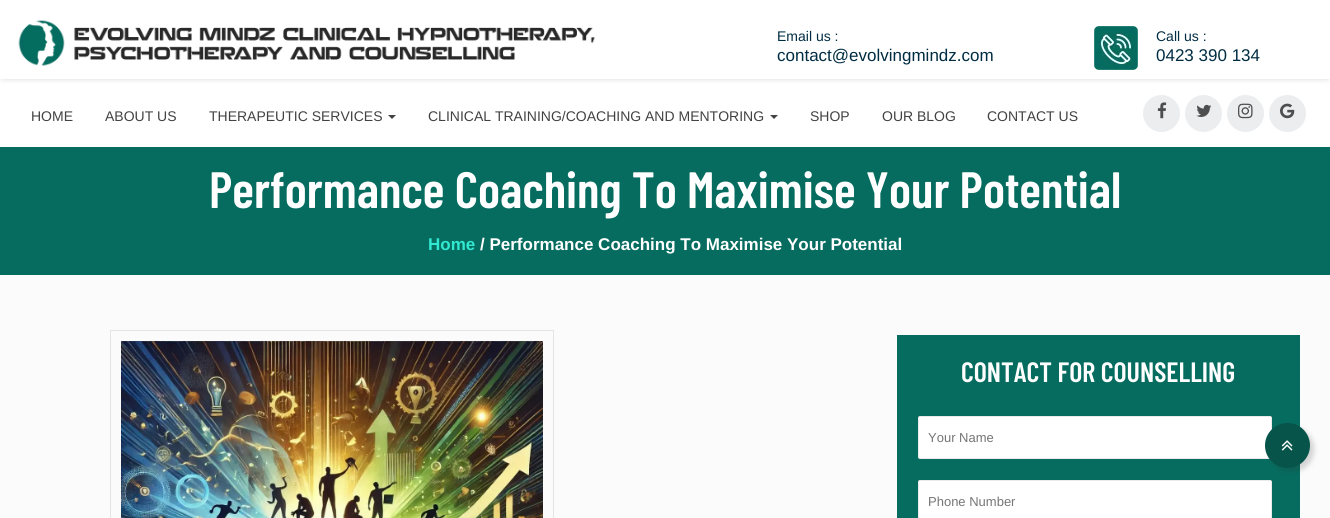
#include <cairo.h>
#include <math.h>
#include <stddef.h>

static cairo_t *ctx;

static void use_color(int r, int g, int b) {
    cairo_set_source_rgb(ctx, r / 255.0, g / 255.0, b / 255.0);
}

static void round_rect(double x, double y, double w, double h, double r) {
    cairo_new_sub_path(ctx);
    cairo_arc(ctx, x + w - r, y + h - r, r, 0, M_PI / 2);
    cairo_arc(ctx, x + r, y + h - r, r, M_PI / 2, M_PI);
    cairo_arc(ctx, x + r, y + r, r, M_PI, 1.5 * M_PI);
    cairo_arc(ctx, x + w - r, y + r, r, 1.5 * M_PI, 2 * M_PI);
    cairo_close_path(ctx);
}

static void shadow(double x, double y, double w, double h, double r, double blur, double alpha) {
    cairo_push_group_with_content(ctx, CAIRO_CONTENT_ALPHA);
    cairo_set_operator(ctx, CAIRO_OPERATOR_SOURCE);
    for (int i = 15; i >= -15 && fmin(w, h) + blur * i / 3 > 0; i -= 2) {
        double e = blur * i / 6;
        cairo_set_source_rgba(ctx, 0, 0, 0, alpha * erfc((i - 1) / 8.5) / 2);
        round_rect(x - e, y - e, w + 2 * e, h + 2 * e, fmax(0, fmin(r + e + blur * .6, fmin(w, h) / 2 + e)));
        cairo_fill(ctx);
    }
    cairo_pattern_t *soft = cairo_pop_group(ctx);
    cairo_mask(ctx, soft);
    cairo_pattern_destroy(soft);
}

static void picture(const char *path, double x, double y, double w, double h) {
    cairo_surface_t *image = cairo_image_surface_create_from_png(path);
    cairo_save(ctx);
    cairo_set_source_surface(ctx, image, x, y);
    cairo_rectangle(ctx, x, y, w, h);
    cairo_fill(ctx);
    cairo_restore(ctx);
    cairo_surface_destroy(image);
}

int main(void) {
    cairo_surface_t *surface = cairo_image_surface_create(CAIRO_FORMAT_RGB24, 1330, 518);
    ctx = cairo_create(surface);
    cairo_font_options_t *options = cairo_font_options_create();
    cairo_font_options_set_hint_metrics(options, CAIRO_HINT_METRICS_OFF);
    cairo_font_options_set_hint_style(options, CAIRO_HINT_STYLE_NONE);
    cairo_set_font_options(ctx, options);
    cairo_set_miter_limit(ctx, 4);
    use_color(255, 255, 255);
    cairo_paint(ctx);
    cairo_save(ctx);
    cairo_rectangle(ctx, 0, 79, 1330, 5);
    cairo_clip(ctx);
    use_color(173, 169, 169);
    shadow(3, 3, 1324, 73, 0, 4, 1);
    cairo_restore(ctx);
    picture("img1.png", 18, 20, 577, 46);
    cairo_select_font_face(ctx, "Liberation Sans", CAIRO_FONT_SLANT_NORMAL, CAIRO_FONT_WEIGHT_NORMAL);
    cairo_set_font_size(ctx, 14);
    use_color(0, 44, 66);
    cairo_move_to(ctx, 777, 41);
    cairo_show_text(ctx, "Email us :");
    cairo_set_font_size(ctx, 17);
    cairo_move_to(ctx, 777, 61);
    cairo_show_text(ctx, "contact@evolvingmindz.com");
    picture("img2.png", 1094, 26, 44, 44);
    cairo_set_font_size(ctx, 14);
    cairo_move_to(ctx, 1156, 41);
    cairo_show_text(ctx, "Call us :");
    cairo_set_font_size(ctx, 17);
    cairo_move_to(ctx, 1156, 61);
    cairo_show_text(ctx, "0423 390 134");
    cairo_set_font_size(ctx, 14);
    use_color(66, 66, 66);
    cairo_move_to(ctx, 31, 121);
    cairo_show_text(ctx, "HOME");
    cairo_move_to(ctx, 105, 121);
    cairo_show_text(ctx, "ABOUT US");
    cairo_move_to(ctx, 209, 121);
    cairo_show_text(ctx, "THERAPEUTIC SERVICES");
    cairo_new_path(ctx);
    cairo_move_to(ctx, 388, 115);
    cairo_line_to(ctx, 396, 115);
    cairo_line_to(ctx, 392, 119);
    cairo_close_path(ctx);
    cairo_fill(ctx);
    cairo_move_to(ctx, 428, 121);
    cairo_show_text(ctx, "CLINICAL TRAINING/COACHING AND MENTORING");
    cairo_new_path(ctx);
    cairo_move_to(ctx, 770, 115);
    cairo_line_to(ctx, 778, 115);
    cairo_line_to(ctx, 774, 119);
    cairo_close_path(ctx);
    cairo_fill(ctx);
    cairo_move_to(ctx, 810, 121);
    cairo_show_text(ctx, "SHOP");
    cairo_move_to(ctx, 882, 121);
    cairo_show_text(ctx, "OUR BLOG");
    cairo_move_to(ctx, 987, 121);
    cairo_show_text(ctx, "CONTACT US");
    use_color(236, 237, 239);
    cairo_new_path(ctx);
    cairo_arc(ctx, 1161.5, 113.5, 18.5, 0, 2 * M_PI);
    cairo_fill(ctx);
    picture("img3.png", 1157, 102, 10, 17);
    cairo_arc(ctx, 1203.5, 113.5, 18.5, 0, 2 * M_PI);
    cairo_fill(ctx);
    picture("img4.png", 1196, 104, 16, 13);
    cairo_arc(ctx, 1245.5, 113.5, 18.5, 0, 2 * M_PI);
    cairo_fill(ctx);
    picture("img5.png", 1238, 103, 15, 16);
    cairo_arc(ctx, 1287.5, 113.5, 18.5, 0, 2 * M_PI);
    cairo_fill(ctx);
    picture("img6.png", 1280, 103, 15, 16);
    use_color(5, 108, 95);
    cairo_rectangle(ctx, 0, 147, 1330, 128);
    cairo_fill(ctx);
    cairo_select_font_face(ctx, "Barlow Condensed SemiBold", CAIRO_FONT_SLANT_NORMAL, CAIRO_FONT_WEIGHT_NORMAL);
    cairo_set_font_size(ctx, 51);
    use_color(255, 255, 255);
    cairo_move_to(ctx, 209, 208);
    cairo_show_text(ctx, "Performance Coaching To Maximise Your Potential");
    cairo_select_font_face(ctx, "Liberation Sans", CAIRO_FONT_SLANT_NORMAL, CAIRO_FONT_WEIGHT_BOLD);
    cairo_set_font_size(ctx, 17);
    use_color(49, 232, 209);
    cairo_move_to(ctx, 428, 250);
    cairo_show_text(ctx, "Home");
    use_color(255, 255, 255);
    cairo_move_to(ctx, 480, 250);
    cairo_show_text(ctx, "/ Performance Coaching To Maximise Your Potential");
    use_color(251, 251, 251);
    cairo_rectangle(ctx, 0, 275, 1330, 243);
    cairo_fill(ctx);
    cairo_rectangle(ctx, 110.5, 330.5, 443, 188);
    use_color(228, 228, 228);
    cairo_set_line_width(ctx, 1);
    cairo_stroke(ctx);
    picture("img7.png", 121, 341, 422, 177);
    use_color(5, 108, 95);
    cairo_rectangle(ctx, 897, 335, 403, 183);
    cairo_fill(ctx);
    cairo_select_font_face(ctx, "Barlow Condensed SemiBold", CAIRO_FONT_SLANT_NORMAL, CAIRO_FONT_WEIGHT_NORMAL);
    cairo_set_font_size(ctx, 28);
    use_color(255, 255, 255);
    cairo_move_to(ctx, 961, 382);
    cairo_show_text(ctx, "CONTACT FOR COUNSELLING");
    round_rect(918.5, 416.5, 353, 42, 1.5);
    cairo_fill_preserve(ctx);
    use_color(234, 234, 234);
    cairo_stroke(ctx);
    cairo_select_font_face(ctx, "Liberation Sans", CAIRO_FONT_SLANT_NORMAL, CAIRO_FONT_WEIGHT_NORMAL);
    cairo_set_font_size(ctx, 13);
    use_color(117, 117, 117);
    cairo_move_to(ctx, 928, 442);
    cairo_show_text(ctx, "Your Name");
    use_color(255, 255, 255);
    round_rect(918.5, 480.5, 353, 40, 1.5);
    cairo_fill_preserve(ctx);
    use_color(234, 234, 234);
    cairo_stroke(ctx);
    use_color(117, 117, 117);
    cairo_move_to(ctx, 928, 506);
    cairo_show_text(ctx, "Phone Number");
    use_color(50, 50, 50);
    shadow(1269, 427, 45, 45, 22.5, 2.5, 0.2);
    use_color(7, 84, 74);
    cairo_arc(ctx, 1287.5, 445.5, 21.5, 0, 2 * M_PI);
    cairo_fill_preserve(ctx);
    cairo_set_line_width(ctx, 2);
    cairo_stroke(ctx);
    picture("img8.png", 1281, 440, 12, 11);
    cairo_surface_write_to_png(surface, "result.png");
    cairo_font_options_destroy(options);
    cairo_destroy(ctx);
    cairo_surface_destroy(surface);
    return 0;
}
